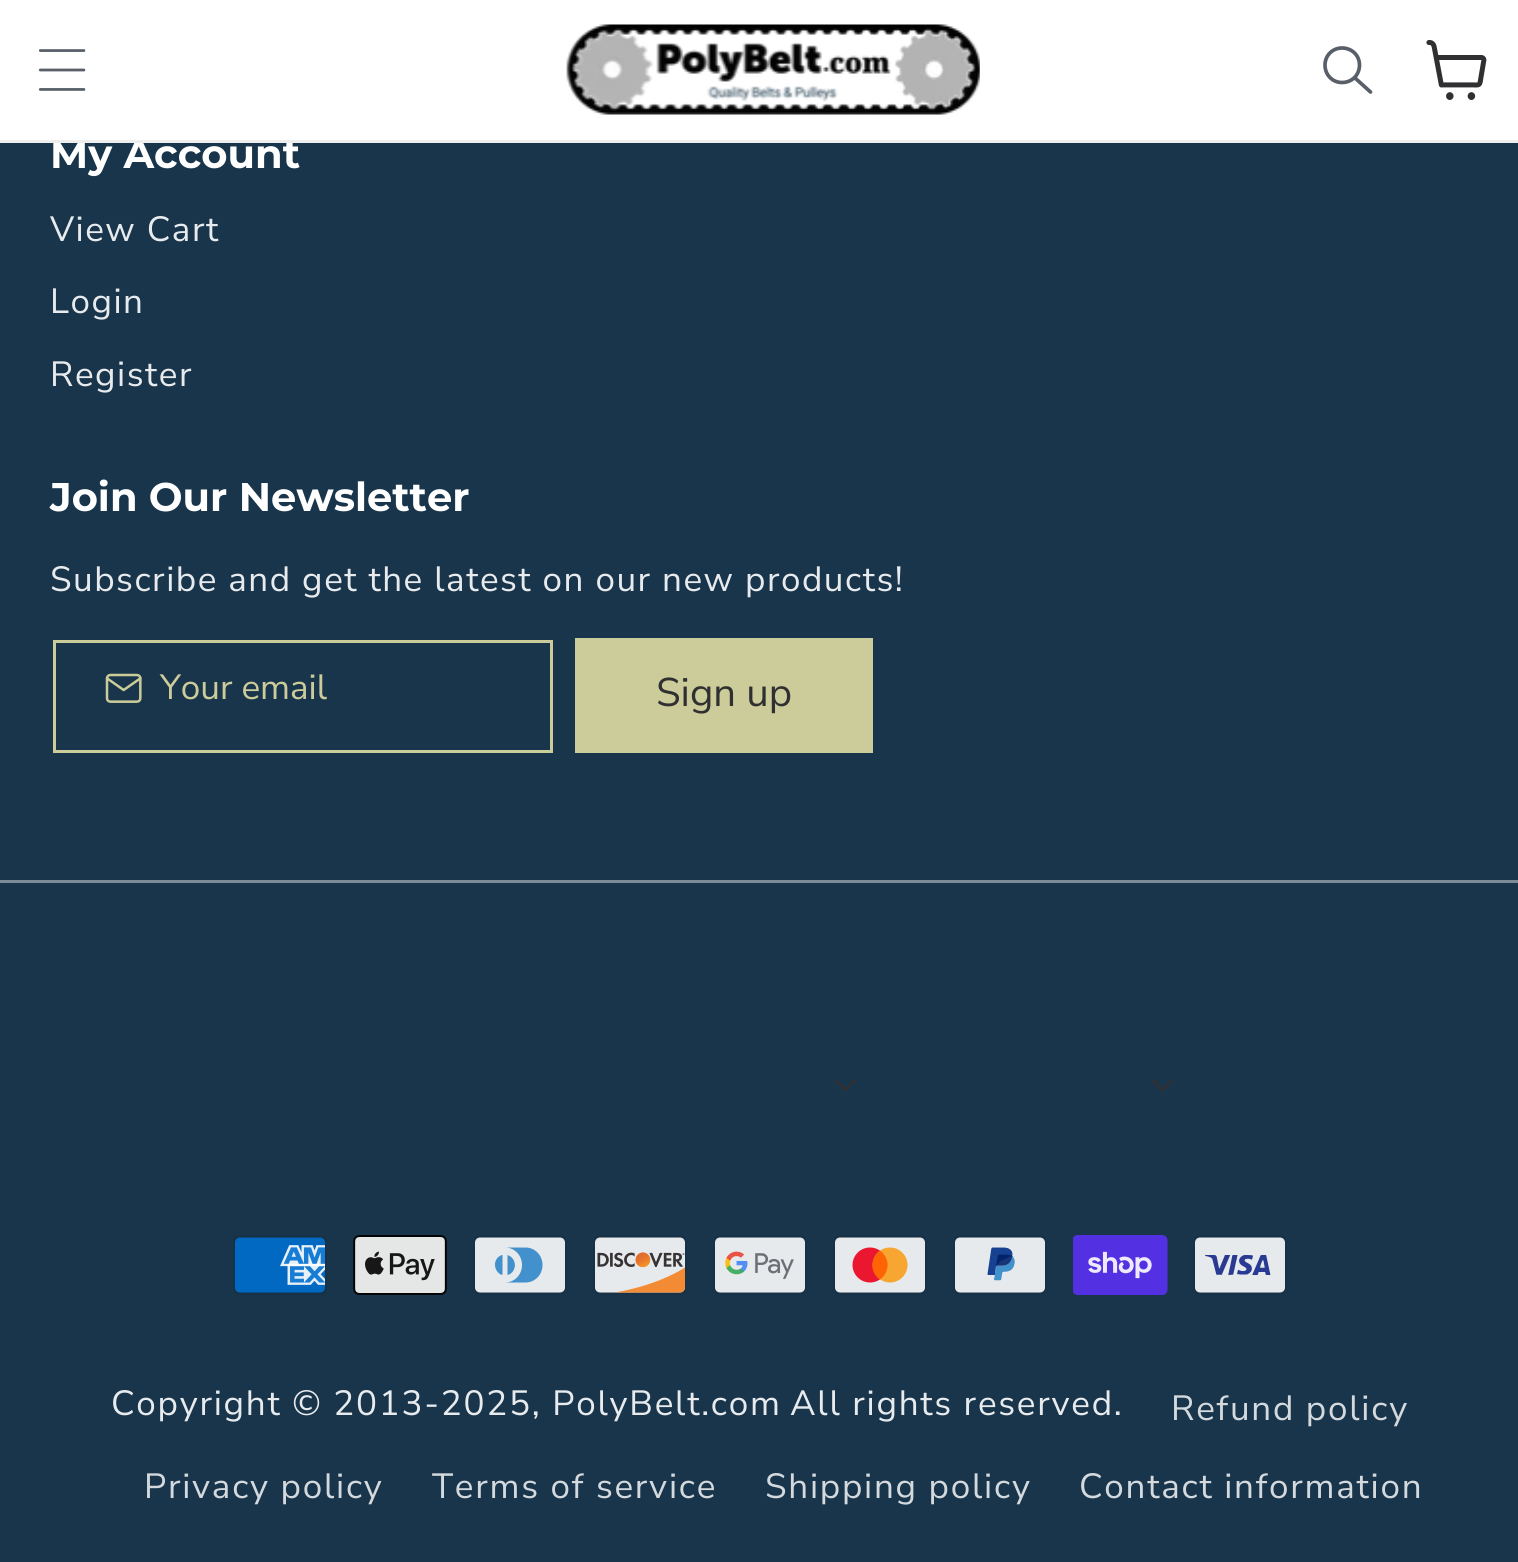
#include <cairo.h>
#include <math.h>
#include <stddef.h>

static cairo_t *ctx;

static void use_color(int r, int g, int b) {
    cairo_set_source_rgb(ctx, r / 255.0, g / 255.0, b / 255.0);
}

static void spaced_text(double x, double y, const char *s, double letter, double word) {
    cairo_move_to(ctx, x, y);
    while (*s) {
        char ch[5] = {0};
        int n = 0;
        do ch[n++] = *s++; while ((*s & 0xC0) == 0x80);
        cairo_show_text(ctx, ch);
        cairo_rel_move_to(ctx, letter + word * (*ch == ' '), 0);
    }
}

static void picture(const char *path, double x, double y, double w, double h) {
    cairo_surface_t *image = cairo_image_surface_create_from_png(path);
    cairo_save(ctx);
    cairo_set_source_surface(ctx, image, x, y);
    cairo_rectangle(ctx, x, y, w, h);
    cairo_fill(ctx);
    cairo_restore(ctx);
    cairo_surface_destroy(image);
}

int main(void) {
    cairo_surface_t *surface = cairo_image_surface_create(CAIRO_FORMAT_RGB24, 1518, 1562);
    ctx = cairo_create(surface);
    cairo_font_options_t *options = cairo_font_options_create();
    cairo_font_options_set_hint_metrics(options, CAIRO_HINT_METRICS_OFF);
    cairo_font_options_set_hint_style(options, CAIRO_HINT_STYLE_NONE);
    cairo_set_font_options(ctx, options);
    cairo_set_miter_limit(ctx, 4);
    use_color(25, 53, 75);
    cairo_paint(ctx);
    use_color(255, 255, 255);
    cairo_rectangle(ctx, 0, 0, 1518, 140);
    cairo_fill(ctx);
    cairo_select_font_face(ctx, "Montserrat", CAIRO_FONT_SLANT_NORMAL, CAIRO_FONT_WEIGHT_BOLD);
    cairo_set_font_size(ctx, 40);
    cairo_move_to(ctx, 50, 168);
    cairo_show_text(ctx, "My Account");
    use_color(238, 238, 239);
    cairo_rectangle(ctx, 0, 140, 1518, 3);
    cairo_fill(ctx);
    picture("img1.png", 38, 49, 48, 42);
    picture("img2.png", 566, 24, 414, 91);
    cairo_new_path(ctx);
    cairo_move_to(ctx, 1342, 82.5);
    cairo_curve_to(ctx, 1352, 82.5, 1359.5, 75, 1359.5, 65);
    cairo_curve_to(ctx, 1359.5, 55.5, 1352, 48, 1342, 48);
    cairo_curve_to(ctx, 1332.5, 48, 1325, 55.5, 1325, 65);
    cairo_curve_to(ctx, 1325, 75, 1332.5, 82.5, 1342, 82.5);
    cairo_close_path(ctx);
    cairo_move_to(ctx, 1370.5, 92);
    cairo_line_to(ctx, 1354.5, 77.5);
    use_color(89, 95, 105);
    cairo_set_line_width(ctx, 3.7);
    cairo_set_line_cap(ctx, CAIRO_LINE_CAP_ROUND);
    cairo_set_line_join(ctx, CAIRO_LINE_JOIN_ROUND);
    cairo_stroke(ctx);
    picture("img3.png", 1426, 40, 61, 60);
    cairo_select_font_face(ctx, "Nunito Sans", CAIRO_FONT_SLANT_NORMAL, CAIRO_FONT_WEIGHT_NORMAL);
    cairo_set_font_size(ctx, 35);
    use_color(232, 235, 237);
    spaced_text(50, 241, "View Cart", 1.5, 0);
    spaced_text(50, 313, "Login", 1.5, 0);
    spaced_text(50, 386, "Register", 1.5, 0);
    cairo_select_font_face(ctx, "Montserrat", CAIRO_FONT_SLANT_NORMAL, CAIRO_FONT_WEIGHT_BOLD);
    cairo_set_font_size(ctx, 40);
    use_color(255, 255, 255);
    cairo_move_to(ctx, 50, 511);
    cairo_show_text(ctx, "Join Our Newsletter");
    cairo_select_font_face(ctx, "Nunito Sans", CAIRO_FONT_SLANT_NORMAL, CAIRO_FONT_WEIGHT_NORMAL);
    cairo_set_font_size(ctx, 35);
    use_color(232, 235, 237);
    spaced_text(50, 591, "Subscribe and get the latest on our new products!", 1.5, 0);
    cairo_rectangle(ctx, 54.5, 641.5, 497, 110);
    use_color(204, 204, 154);
    cairo_set_line_width(ctx, 3);
    cairo_set_line_cap(ctx, CAIRO_LINE_CAP_BUTT);
    cairo_set_line_join(ctx, CAIRO_LINE_JOIN_MITER);
    cairo_stroke(ctx);
    picture("img4.png", 105, 673, 37, 30);
    cairo_move_to(ctx, 160, 699);
    cairo_show_text(ctx, "Your email");
    cairo_rectangle(ctx, 575, 638, 298, 115);
    cairo_fill(ctx);
    cairo_set_font_size(ctx, 40);
    use_color(48, 48, 50);
    cairo_move_to(ctx, 656, 706);
    cairo_show_text(ctx, "Sign up");
    use_color(125, 139, 150);
    cairo_rectangle(ctx, 0, 880, 1518, 3);
    cairo_fill(ctx);
    picture("img5.png", 834, 1079, 22, 12);
    picture("img6.png", 1151, 1078, 23, 14);
    picture("img7.png", 233, 1235, 94, 60);
    picture("img8.png", 353, 1235, 94, 60);
    picture("img9.png", 473, 1235, 94, 60);
    picture("img10.png", 593, 1235, 94, 60);
    picture("img11.png", 713, 1235, 94, 60);
    picture("img12.png", 833, 1235, 94, 60);
    picture("img13.png", 953, 1235, 94, 60);
    picture("img14.png", 1073, 1235, 95, 60);
    picture("img15.png", 1193, 1235, 94, 60);
    cairo_set_font_size(ctx, 35);
    use_color(232, 235, 237);
    spaced_text(111, 1415, "Copyright © 2013-2025, PolyBelt.com", 1.75, 0);
    spaced_text(790, 1415, "All rights reserved.", 1.75, 0);
    use_color(211, 217, 221);
    spaced_text(1171, 1420, "Refund policy", 1.75, 0);
    spaced_text(144, 1498, "Privacy policy", 1.75, 0);
    spaced_text(432, 1498, "Terms of service", 1.75, 0);
    spaced_text(765, 1498, "Shipping policy", 1.75, 0);
    spaced_text(1079, 1498, "Contact information", 1.75, 0);
    cairo_surface_write_to_png(surface, "result.png");
    cairo_font_options_destroy(options);
    cairo_destroy(ctx);
    cairo_surface_destroy(surface);
    return 0;
}
